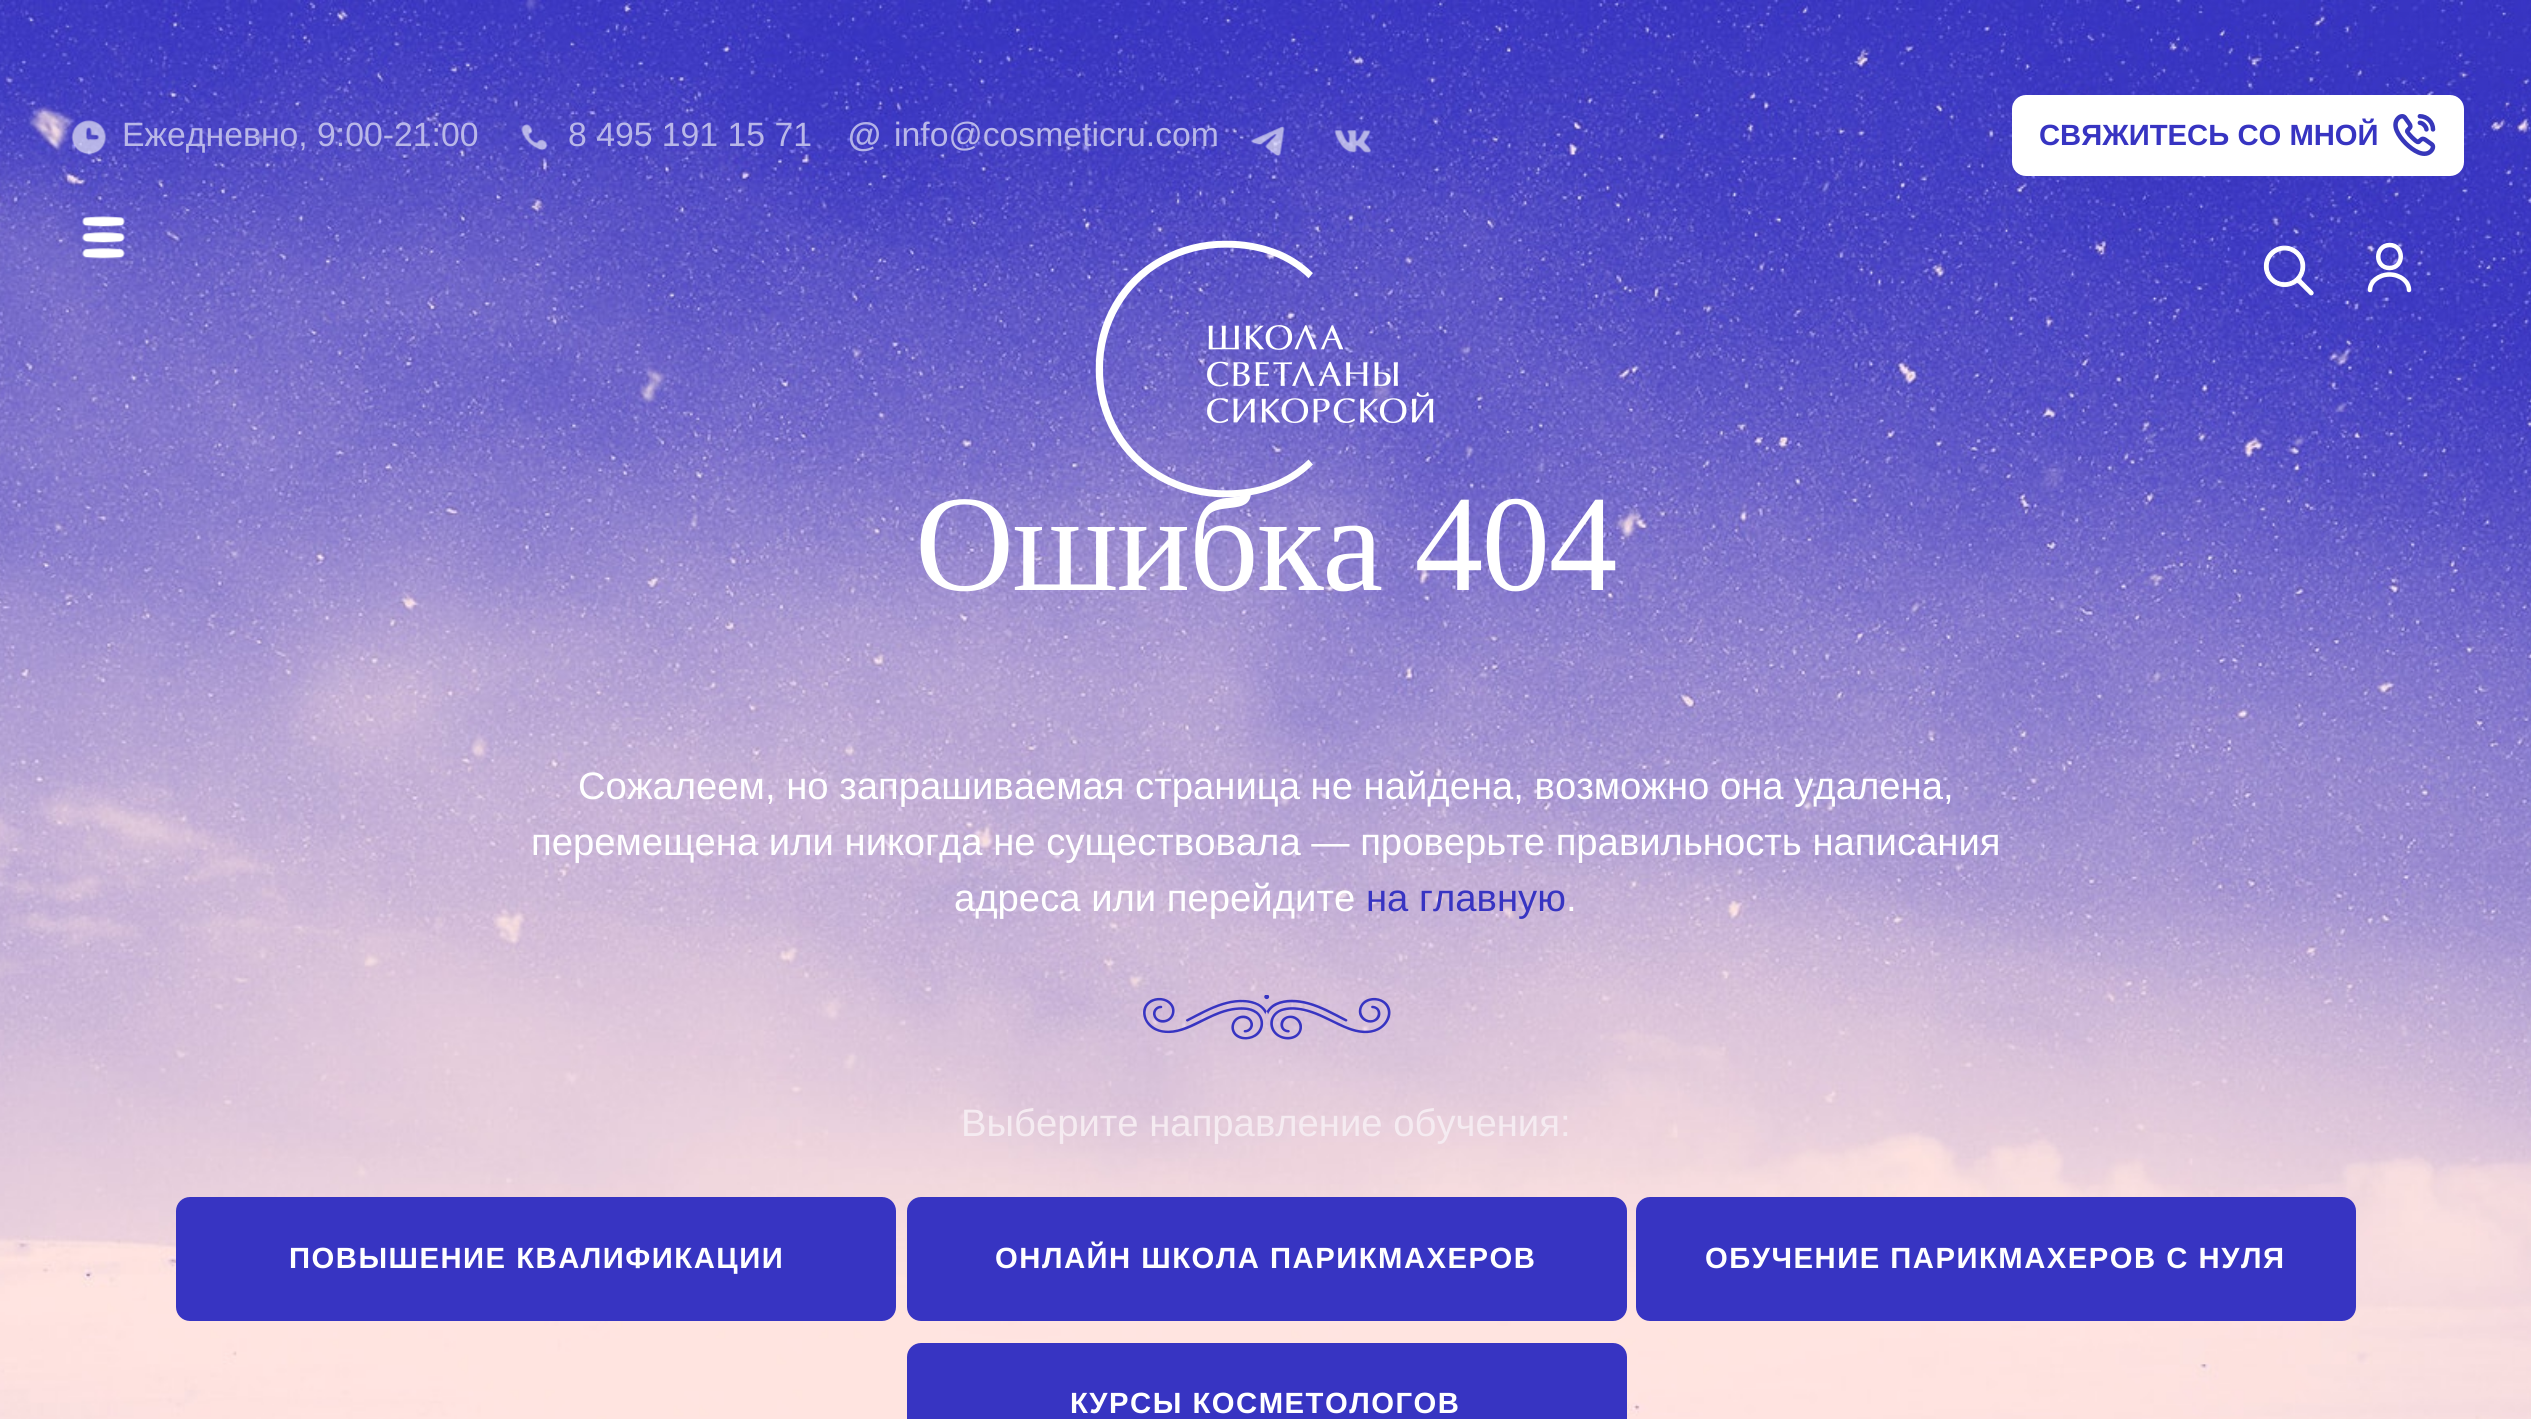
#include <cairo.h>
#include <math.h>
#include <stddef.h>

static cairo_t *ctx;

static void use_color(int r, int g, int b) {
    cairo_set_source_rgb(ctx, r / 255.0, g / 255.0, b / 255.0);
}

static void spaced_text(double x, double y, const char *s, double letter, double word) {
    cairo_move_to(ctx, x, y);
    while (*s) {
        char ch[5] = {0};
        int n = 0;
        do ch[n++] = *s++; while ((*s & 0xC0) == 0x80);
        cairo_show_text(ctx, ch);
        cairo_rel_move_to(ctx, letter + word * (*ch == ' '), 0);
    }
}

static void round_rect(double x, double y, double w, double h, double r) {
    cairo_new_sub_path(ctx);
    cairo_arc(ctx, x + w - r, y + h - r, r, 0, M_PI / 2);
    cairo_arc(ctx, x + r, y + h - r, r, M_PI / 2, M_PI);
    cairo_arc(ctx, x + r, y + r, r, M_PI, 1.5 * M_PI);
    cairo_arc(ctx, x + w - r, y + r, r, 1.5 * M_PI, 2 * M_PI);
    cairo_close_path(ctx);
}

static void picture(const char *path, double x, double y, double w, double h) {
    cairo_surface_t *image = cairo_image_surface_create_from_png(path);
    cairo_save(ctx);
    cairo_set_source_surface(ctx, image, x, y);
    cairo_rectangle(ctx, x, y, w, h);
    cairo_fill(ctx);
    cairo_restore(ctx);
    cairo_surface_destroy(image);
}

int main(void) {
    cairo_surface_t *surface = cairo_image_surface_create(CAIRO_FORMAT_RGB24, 2531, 1419);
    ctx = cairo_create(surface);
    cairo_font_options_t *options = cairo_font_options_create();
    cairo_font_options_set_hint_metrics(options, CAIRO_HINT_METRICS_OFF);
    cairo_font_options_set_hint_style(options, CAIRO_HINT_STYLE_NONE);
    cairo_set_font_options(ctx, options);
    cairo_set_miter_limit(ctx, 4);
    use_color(255, 255, 255);
    cairo_paint(ctx);
    picture("img1.png", 0, 0, 2531, 1419);
    picture("img2.png", 71, 120, 35, 35);
    cairo_select_font_face(ctx, "Liberation Sans", CAIRO_FONT_SLANT_NORMAL, CAIRO_FONT_WEIGHT_NORMAL);
    cairo_set_font_size(ctx, 33.75);
    use_color(185, 183, 232);
    cairo_move_to(ctx, 122, 146);
    cairo_show_text(ctx, "Ежедневно, 9:00-21:00");
    picture("img3.png", 521, 124, 27, 27);
    cairo_move_to(ctx, 568, 146);
    cairo_show_text(ctx, "8 495 191 15 71");
    cairo_select_font_face(ctx, "Liberation Sans", CAIRO_FONT_SLANT_NORMAL, CAIRO_FONT_WEIGHT_BOLD);
    use_color(179, 178, 231);
    cairo_move_to(ctx, 848, 146);
    cairo_show_text(ctx, "@");
    cairo_select_font_face(ctx, "Liberation Sans", CAIRO_FONT_SLANT_NORMAL, CAIRO_FONT_WEIGHT_NORMAL);
    use_color(185, 183, 232);
    cairo_move_to(ctx, 894, 146);
    cairo_show_text(ctx, "info@cosmeticru.com");
    picture("img4.png", 1251, 126, 34, 31);
    picture("img5.png", 1334, 130, 38, 23);
    use_color(255, 255, 255);
    round_rect(2012, 95, 452, 81, 14);
    cairo_fill(ctx);
    cairo_select_font_face(ctx, "Liberation Sans", CAIRO_FONT_SLANT_NORMAL, CAIRO_FONT_WEIGHT_BOLD);
    cairo_set_font_size(ctx, 29.25);
    use_color(55, 52, 194);
    cairo_move_to(ctx, 2039, 145);
    cairo_show_text(ctx, "СВЯЖИТЕСЬ СО МНОЙ");
    picture("img6.png", 2393, 114, 43, 42);
    picture("img7.png", 82, 216, 43, 43);
    cairo_select_font_face(ctx, "Liberation Serif", CAIRO_FONT_SLANT_NORMAL, CAIRO_FONT_WEIGHT_NORMAL);
    cairo_set_font_size(ctx, 137.25);
    use_color(255, 255, 255);
    spaced_text(915, 590, "Ошибка 404", -1.5, 0);
    picture("img8.png", 1095, 240, 339, 258);
    picture("img9.png", 2263, 245, 51, 51);
    cairo_new_path(ctx);
    cairo_move_to(ctx, 2389.5, 268);
    cairo_curve_to(ctx, 2404.5, 268, 2404.5, 245, 2389.5, 245);
    cairo_curve_to(ctx, 2374.5, 245.5, 2374.5, 268, 2389.5, 268);
    cairo_close_path(ctx);
    cairo_move_to(ctx, 2409, 290);
    cairo_curve_to(ctx, 2409, 281.5, 2400, 274.5, 2389.5, 274.5);
    cairo_curve_to(ctx, 2379, 274.5, 2370, 281.5, 2370, 290);
    cairo_set_line_width(ctx, 4.5);
    cairo_set_line_cap(ctx, CAIRO_LINE_CAP_ROUND);
    cairo_set_line_join(ctx, CAIRO_LINE_JOIN_ROUND);
    cairo_stroke(ctx);
    cairo_select_font_face(ctx, "Liberation Sans", CAIRO_FONT_SLANT_NORMAL, CAIRO_FONT_WEIGHT_NORMAL);
    cairo_set_font_size(ctx, 38.25);
    cairo_move_to(ctx, 578, 799);
    cairo_show_text(ctx, "Сожалеем, но запрашиваемая страница не найдена, возможно она удалена,");
    cairo_move_to(ctx, 531, 855);
    cairo_show_text(ctx, "перемещена или никогда не существовала — проверьте правильность написания");
    cairo_move_to(ctx, 954, 911);
    cairo_show_text(ctx, "адреса или перейдите");
    use_color(55, 52, 194);
    cairo_move_to(ctx, 1366, 911);
    cairo_show_text(ctx, "на главную");
    use_color(255, 255, 255);
    cairo_move_to(ctx, 1566, 911);
    cairo_show_text(ctx, ".");
    picture("img10.png", 1143, 995, 248, 45);
    use_color(245, 235, 241);
    cairo_move_to(ctx, 961, 1136);
    cairo_show_text(ctx, "Выберите направление обучения:");
    use_color(55, 52, 194);
    round_rect(176, 1197, 720, 124, 14);
    cairo_fill(ctx);
    cairo_select_font_face(ctx, "Liberation Sans", CAIRO_FONT_SLANT_NORMAL, CAIRO_FONT_WEIGHT_BOLD);
    cairo_set_font_size(ctx, 29.25);
    use_color(255, 255, 255);
    spaced_text(289, 1268, "ПОВЫШЕНИЕ КВАЛИФИКАЦИИ", 1.5, 0);
    use_color(55, 52, 194);
    round_rect(907, 1197, 720, 124, 14);
    cairo_fill(ctx);
    use_color(255, 255, 255);
    spaced_text(995, 1268, "ОНЛАЙН ШКОЛА ПАРИКМАХЕРОВ", 1.5, 0);
    use_color(55, 52, 194);
    round_rect(1636, 1197, 720, 124, 14);
    cairo_fill(ctx);
    use_color(255, 255, 255);
    spaced_text(1705, 1268, "ОБУЧЕНИЕ ПАРИКМАХЕРОВ С НУЛЯ", 1.5, 0);
    use_color(55, 52, 194);
    round_rect(907, 1343, 720, 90, 14);
    cairo_fill(ctx);
    use_color(255, 255, 255);
    spaced_text(1070, 1413, "КУРСЫ КОСМЕТОЛОГОВ", 1.5, 0);
    cairo_surface_write_to_png(surface, "result.png");
    cairo_font_options_destroy(options);
    cairo_destroy(ctx);
    cairo_surface_destroy(surface);
    return 0;
}
